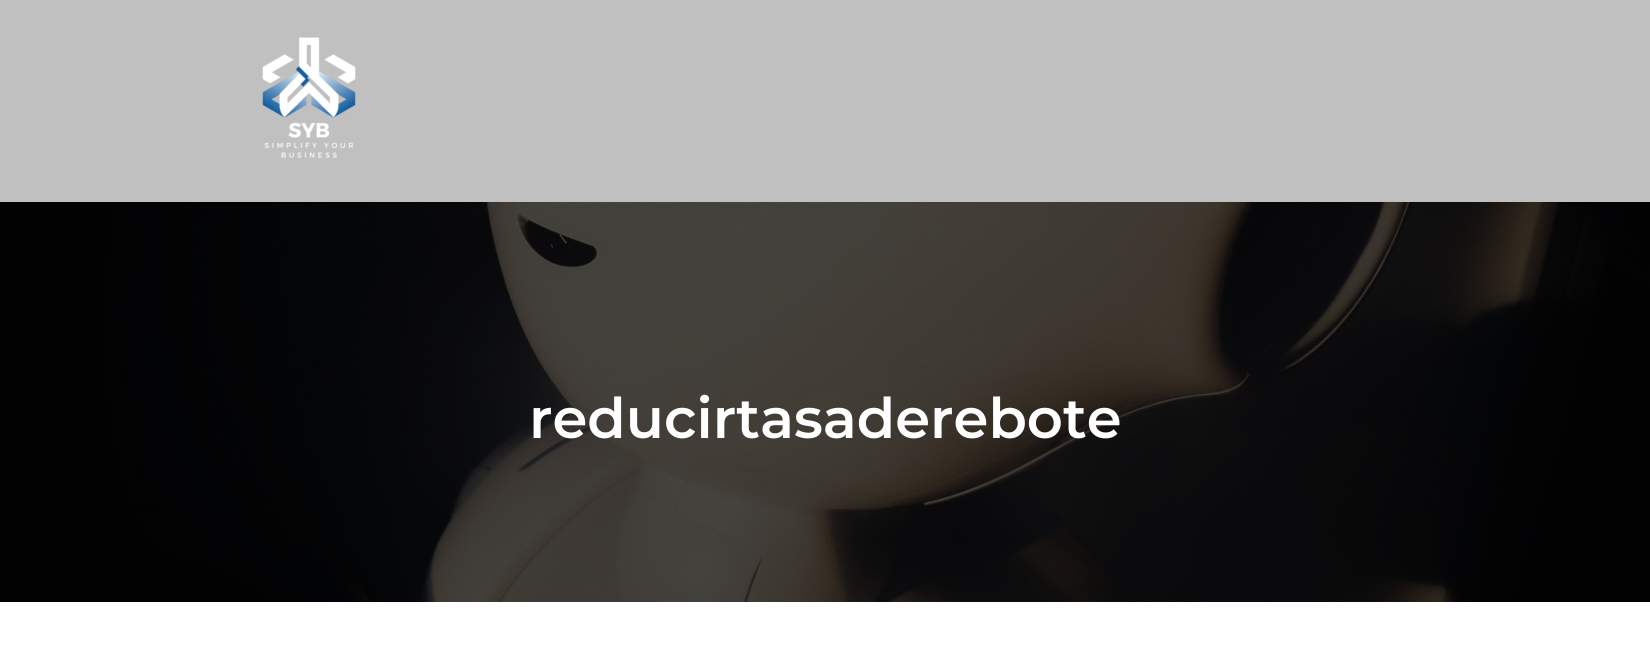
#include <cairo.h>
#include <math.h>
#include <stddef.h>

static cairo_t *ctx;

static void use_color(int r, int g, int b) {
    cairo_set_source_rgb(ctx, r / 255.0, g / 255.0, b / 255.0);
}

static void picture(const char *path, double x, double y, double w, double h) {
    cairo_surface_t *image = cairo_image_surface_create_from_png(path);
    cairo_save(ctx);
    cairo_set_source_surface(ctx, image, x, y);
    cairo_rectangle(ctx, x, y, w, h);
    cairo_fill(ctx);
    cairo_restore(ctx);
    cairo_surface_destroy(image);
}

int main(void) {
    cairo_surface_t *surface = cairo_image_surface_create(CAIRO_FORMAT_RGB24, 1650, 666);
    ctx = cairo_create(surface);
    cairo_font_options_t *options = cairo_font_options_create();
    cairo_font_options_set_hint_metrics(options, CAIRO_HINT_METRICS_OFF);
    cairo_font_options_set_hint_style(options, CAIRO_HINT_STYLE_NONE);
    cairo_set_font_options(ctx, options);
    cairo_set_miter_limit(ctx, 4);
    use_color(255, 255, 255);
    cairo_paint(ctx);
    use_color(192, 192, 192);
    cairo_rectangle(ctx, 0, 0, 1650, 202);
    cairo_fill(ctx);
    picture("img1.png", 262, 37, 94, 121);
    picture("img2.png", 0, 202, 1650, 400);
    cairo_select_font_face(ctx, "Montserrat SemiBold", CAIRO_FONT_SLANT_NORMAL, CAIRO_FONT_WEIGHT_NORMAL);
    cairo_set_font_size(ctx, 56);
    use_color(255, 255, 255);
    cairo_move_to(ctx, 529, 438);
    cairo_show_text(ctx, "reducirtasaderebote");
    cairo_surface_write_to_png(surface, "result.png");
    cairo_font_options_destroy(options);
    cairo_destroy(ctx);
    cairo_surface_destroy(surface);
    return 0;
}
